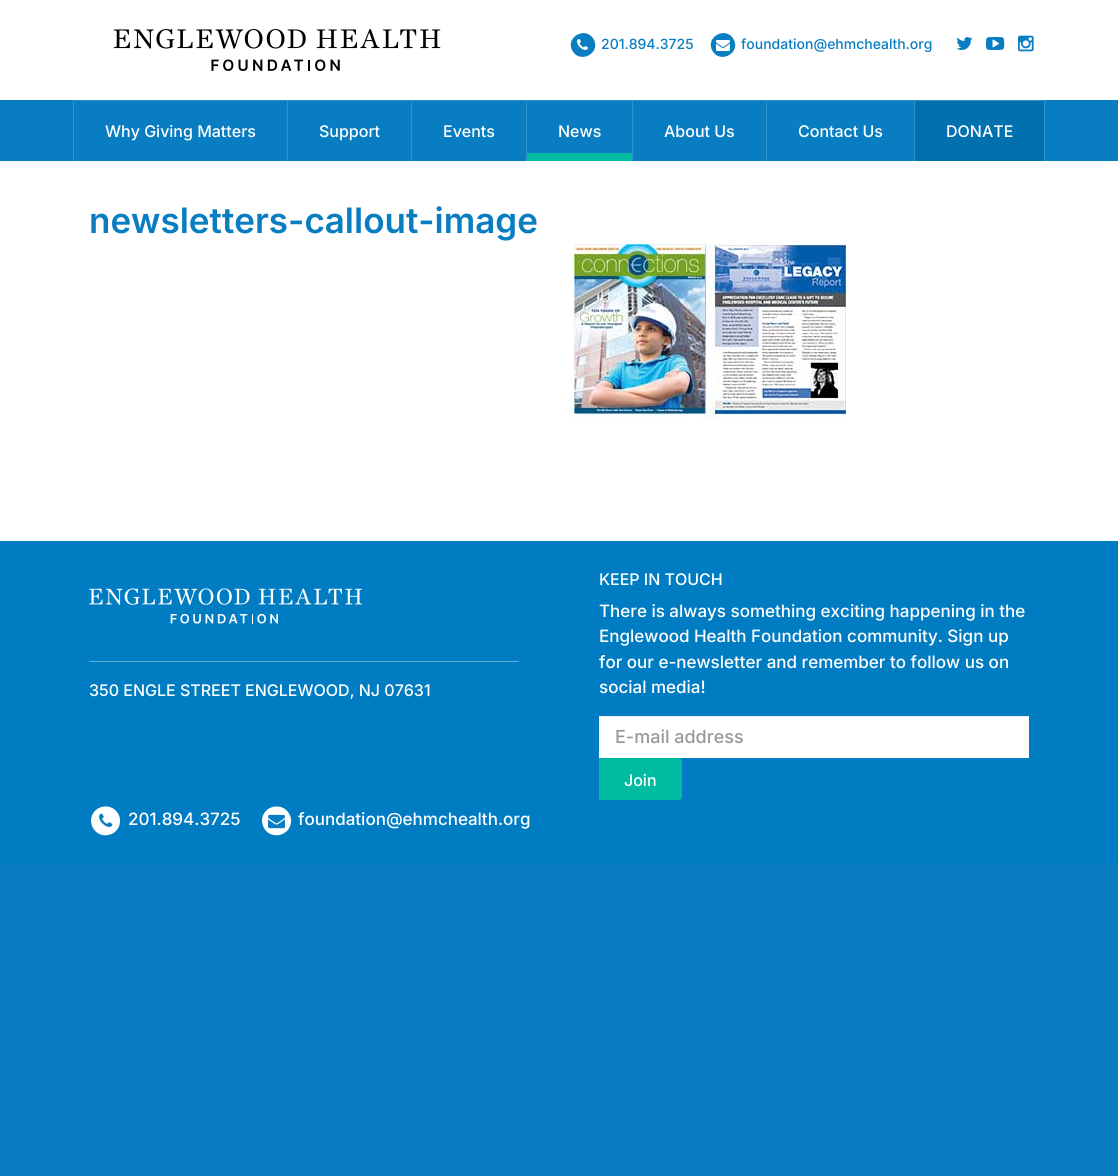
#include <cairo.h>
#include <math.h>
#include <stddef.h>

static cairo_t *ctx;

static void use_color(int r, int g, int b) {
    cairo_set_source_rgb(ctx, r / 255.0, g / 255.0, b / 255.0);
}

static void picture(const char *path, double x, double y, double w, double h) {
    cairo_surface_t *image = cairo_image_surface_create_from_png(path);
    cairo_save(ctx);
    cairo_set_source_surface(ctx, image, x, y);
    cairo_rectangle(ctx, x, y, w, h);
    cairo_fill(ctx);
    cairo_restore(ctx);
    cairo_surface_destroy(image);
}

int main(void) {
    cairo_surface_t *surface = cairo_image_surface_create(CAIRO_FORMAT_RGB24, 1118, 1176);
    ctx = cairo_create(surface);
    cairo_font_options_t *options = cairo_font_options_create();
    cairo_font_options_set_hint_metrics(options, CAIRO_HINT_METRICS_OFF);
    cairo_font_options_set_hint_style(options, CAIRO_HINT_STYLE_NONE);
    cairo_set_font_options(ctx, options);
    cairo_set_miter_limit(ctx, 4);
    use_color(8, 125, 194);
    cairo_paint(ctx);
    use_color(255, 255, 255);
    cairo_rectangle(ctx, 0, 0, 1118, 541);
    cairo_fill(ctx);
    picture("img1.png", 113, 29, 328, 42);
    use_color(8, 125, 194);
    cairo_new_path(ctx);
    cairo_move_to(ctx, 593.5, 39);
    cairo_curve_to(ctx, 601.5, 52.5, 580.5, 64.5, 572.5, 51);
    cairo_curve_to(ctx, 564.5, 37.5, 585.5, 25.5, 593.5, 39);
    cairo_close_path(ctx);
    cairo_fill(ctx);
    picture("img2.png", 577, 39, 11, 11);
    cairo_select_font_face(ctx, "Inter Medium", CAIRO_FONT_SLANT_NORMAL, CAIRO_FONT_WEIGHT_NORMAL);
    cairo_set_font_size(ctx, 14);
    cairo_move_to(ctx, 601, 49);
    cairo_show_text(ctx, "201.894.3725");
    cairo_new_path(ctx);
    cairo_move_to(ctx, 733.5, 39);
    cairo_curve_to(ctx, 741.5, 52.5, 720.5, 64.5, 712.5, 51);
    cairo_curve_to(ctx, 704.5, 37.5, 725.5, 25.5, 733.5, 39);
    cairo_close_path(ctx);
    cairo_fill(ctx);
    picture("img3.png", 716, 40, 14, 11);
    cairo_move_to(ctx, 741, 49);
    cairo_show_text(ctx, "foundation@ehmchealth.org");
    picture("img4.png", 956, 37, 17, 13);
    picture("img5.png", 986, 37, 19, 13);
    picture("img6.png", 1018, 35, 16, 17);
    cairo_rectangle(ctx, 0, 100, 1118, 61);
    cairo_fill(ctx);
    use_color(44, 147, 200);
    cairo_rectangle(ctx, 287, 100, 1, 61);
    cairo_fill(ctx);
    cairo_rectangle(ctx, 73, 100, 1, 61);
    cairo_fill(ctx);
    cairo_rectangle(ctx, 74, 100, 213, 1);
    cairo_fill(ctx);
    cairo_set_font_size(ctx, 16);
    use_color(255, 255, 255);
    cairo_move_to(ctx, 105, 137);
    cairo_show_text(ctx, "Why Giving Matters");
    use_color(44, 147, 200);
    cairo_rectangle(ctx, 411, 100, 1, 61);
    cairo_fill(ctx);
    cairo_rectangle(ctx, 288, 100, 123, 1);
    cairo_fill(ctx);
    use_color(255, 255, 255);
    cairo_move_to(ctx, 319, 137);
    cairo_show_text(ctx, "Support");
    use_color(44, 147, 200);
    cairo_rectangle(ctx, 526, 100, 1, 61);
    cairo_fill(ctx);
    cairo_rectangle(ctx, 412, 100, 114, 1);
    cairo_fill(ctx);
    use_color(255, 255, 255);
    cairo_move_to(ctx, 443, 137);
    cairo_show_text(ctx, "Events");
    use_color(44, 147, 200);
    cairo_rectangle(ctx, 632, 100, 1, 61);
    cairo_fill(ctx);
    cairo_rectangle(ctx, 527, 100, 105, 1);
    cairo_fill(ctx);
    use_color(1, 187, 163);
    cairo_rectangle(ctx, 527, 153, 105, 8);
    cairo_fill(ctx);
    use_color(255, 255, 255);
    cairo_move_to(ctx, 558, 137);
    cairo_show_text(ctx, "News");
    use_color(44, 147, 200);
    cairo_rectangle(ctx, 766, 100, 1, 61);
    cairo_fill(ctx);
    cairo_rectangle(ctx, 633, 100, 133, 1);
    cairo_fill(ctx);
    use_color(255, 255, 255);
    cairo_move_to(ctx, 664, 137);
    cairo_show_text(ctx, "About Us");
    use_color(44, 147, 200);
    cairo_rectangle(ctx, 914, 100, 1, 61);
    cairo_fill(ctx);
    cairo_rectangle(ctx, 767, 100, 147, 1);
    cairo_fill(ctx);
    use_color(255, 255, 255);
    cairo_move_to(ctx, 798, 137);
    cairo_show_text(ctx, "Contact Us");
    use_color(44, 147, 200);
    cairo_rectangle(ctx, 1044, 100, 1, 61);
    cairo_fill(ctx);
    use_color(1, 112, 175);
    cairo_rectangle(ctx, 915, 101, 129, 60);
    cairo_fill(ctx);
    use_color(44, 147, 200);
    cairo_rectangle(ctx, 915, 100, 129, 1);
    cairo_fill(ctx);
    use_color(255, 255, 255);
    cairo_move_to(ctx, 946, 137);
    cairo_show_text(ctx, "DONATE");
    cairo_select_font_face(ctx, "Inter SemiBold", CAIRO_FONT_SLANT_NORMAL, CAIRO_FONT_WEIGHT_NORMAL);
    cairo_set_font_size(ctx, 35);
    use_color(8, 125, 194);
    cairo_move_to(ctx, 89, 233);
    cairo_show_text(ctx, "newsletters-callout-image");
    picture("img7.png", 574, 244, 273, 176);
    use_color(0, 124, 195);
    cairo_rectangle(ctx, 0, 541, 1118, 322);
    cairo_fill(ctx);
    picture("img8.png", 89, 588, 273, 36);
    use_color(97, 174, 218);
    cairo_rectangle(ctx, 89, 661, 430, 1);
    cairo_fill(ctx);
    cairo_select_font_face(ctx, "Inter Medium", CAIRO_FONT_SLANT_NORMAL, CAIRO_FONT_WEIGHT_NORMAL);
    cairo_set_font_size(ctx, 16);
    use_color(255, 255, 255);
    cairo_move_to(ctx, 89, 696);
    cairo_show_text(ctx, "350 ENGLE STREET ENGLEWOOD, NJ 07631");
    cairo_new_path(ctx);
    cairo_move_to(ctx, 118, 813.5);
    cairo_curve_to(ctx, 119.5, 816, 120.5, 819, 120, 822);
    cairo_curve_to(ctx, 119, 836, 100, 840.5, 93, 828);
    cairo_curve_to(ctx, 91.5, 825.5, 91, 823, 91, 820);
    cairo_curve_to(ctx, 92, 805.5, 111, 801.5, 118, 813.5);
    cairo_close_path(ctx);
    cairo_fill(ctx);
    picture("img9.png", 99, 813, 14, 14);
    cairo_set_font_size(ctx, 17);
    cairo_move_to(ctx, 128, 825);
    cairo_show_text(ctx, "201.894.3725");
    cairo_new_path(ctx);
    cairo_move_to(ctx, 289, 813.5);
    cairo_curve_to(ctx, 290.5, 816, 291.5, 819, 291, 822);
    cairo_curve_to(ctx, 290, 836, 271, 840.5, 264, 828);
    cairo_curve_to(ctx, 262.5, 825.5, 262, 823, 262, 820);
    cairo_curve_to(ctx, 263, 805.5, 282, 801.5, 289, 813.5);
    cairo_close_path(ctx);
    cairo_fill(ctx);
    picture("img10.png", 268, 814, 17, 15);
    cairo_move_to(ctx, 298, 825);
    cairo_show_text(ctx, "foundation@ehmchealth.org");
    cairo_set_font_size(ctx, 16);
    cairo_move_to(ctx, 599, 585);
    cairo_show_text(ctx, "KEEP IN TOUCH");
    cairo_set_font_size(ctx, 17);
    cairo_move_to(ctx, 599, 617);
    cairo_show_text(ctx, "There is always something exciting happening in the");
    cairo_move_to(ctx, 599, 642);
    cairo_show_text(ctx, "Englewood Health Foundation community. Sign up");
    cairo_move_to(ctx, 599, 668);
    cairo_show_text(ctx, "for our e-newsletter and remember to follow us on");
    cairo_move_to(ctx, 599, 693);
    cairo_show_text(ctx, "social media!");
    cairo_rectangle(ctx, 599, 717, 430, 41);
    cairo_fill(ctx);
    use_color(236, 236, 236);
    cairo_rectangle(ctx, 599, 716, 430, 1);
    cairo_fill(ctx);
    cairo_set_font_size(ctx, 18);
    use_color(153, 153, 153);
    cairo_move_to(ctx, 615, 743);
    cairo_show_text(ctx, "E-mail address");
    use_color(1, 187, 163);
    cairo_new_path(ctx);
    cairo_move_to(ctx, 599, 758);
    cairo_line_to(ctx, 679, 758);
    cairo_curve_to(ctx, 680.5, 758, 682, 759.5, 682, 761);
    cairo_line_to(ctx, 682, 797);
    cairo_curve_to(ctx, 682, 798.5, 680.5, 800, 679, 800);
    cairo_line_to(ctx, 599, 800);
    cairo_close_path(ctx);
    cairo_fill(ctx);
    cairo_set_font_size(ctx, 16);
    use_color(255, 255, 255);
    cairo_move_to(ctx, 624, 786);
    cairo_show_text(ctx, "Join");
    cairo_surface_write_to_png(surface, "result.png");
    cairo_font_options_destroy(options);
    cairo_destroy(ctx);
    cairo_surface_destroy(surface);
    return 0;
}
